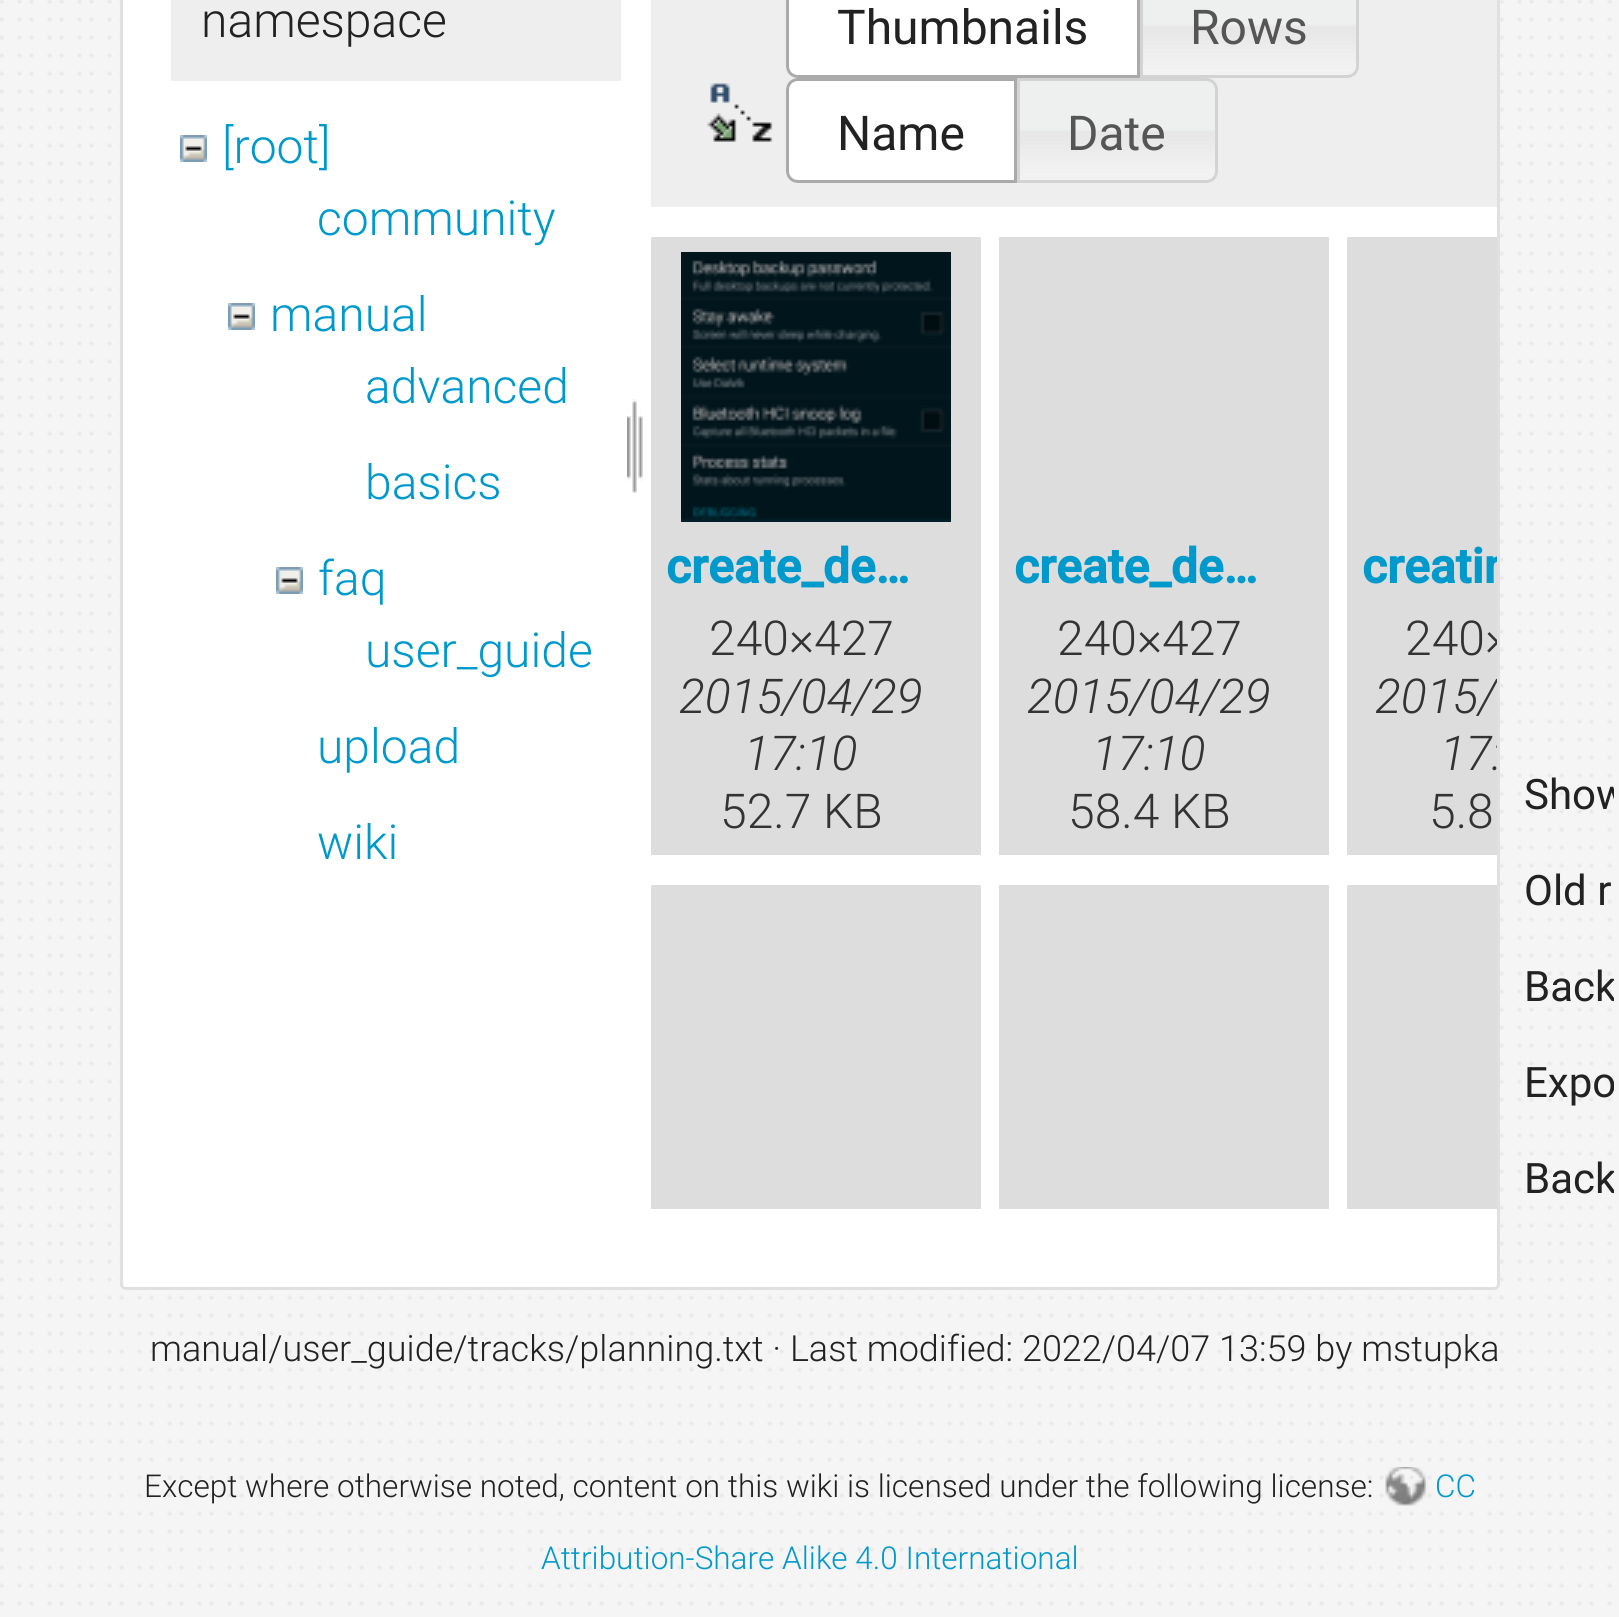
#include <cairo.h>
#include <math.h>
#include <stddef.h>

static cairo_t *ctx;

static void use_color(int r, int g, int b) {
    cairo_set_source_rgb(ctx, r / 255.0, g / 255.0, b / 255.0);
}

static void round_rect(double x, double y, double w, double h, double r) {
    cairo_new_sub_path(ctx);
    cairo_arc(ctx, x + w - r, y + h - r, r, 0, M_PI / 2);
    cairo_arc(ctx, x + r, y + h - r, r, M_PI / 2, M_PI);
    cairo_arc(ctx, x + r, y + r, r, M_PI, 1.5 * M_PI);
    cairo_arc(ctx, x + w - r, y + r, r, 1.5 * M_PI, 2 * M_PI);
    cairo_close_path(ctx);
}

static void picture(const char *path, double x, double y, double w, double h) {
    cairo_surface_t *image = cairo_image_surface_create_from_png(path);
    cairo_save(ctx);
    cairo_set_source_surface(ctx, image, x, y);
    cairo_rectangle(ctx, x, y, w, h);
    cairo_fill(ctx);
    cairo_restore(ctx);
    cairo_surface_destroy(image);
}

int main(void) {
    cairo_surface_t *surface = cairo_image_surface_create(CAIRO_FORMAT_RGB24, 1619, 1617);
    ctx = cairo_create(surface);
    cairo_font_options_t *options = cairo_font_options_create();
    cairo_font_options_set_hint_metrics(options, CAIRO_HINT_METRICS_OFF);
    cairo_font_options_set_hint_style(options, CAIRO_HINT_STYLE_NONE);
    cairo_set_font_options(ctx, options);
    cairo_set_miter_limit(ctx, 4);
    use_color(255, 255, 255);
    cairo_paint(ctx);
    picture("img1.png", 0, 0, 1619, 1617);
    use_color(255, 255, 255);
    round_rect(121.5, -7.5, 1377, 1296, 4.5);
    cairo_fill_preserve(ctx);
    use_color(224, 224, 224);
    cairo_set_line_width(ctx, 3);
    cairo_stroke(ctx);
    use_color(238, 238, 238);
    cairo_rectangle(ctx, 171, 0, 450, 81);
    cairo_fill(ctx);
    cairo_select_font_face(ctx, "Roboto Light", CAIRO_FONT_SLANT_NORMAL, CAIRO_FONT_WEIGHT_NORMAL);
    cairo_set_font_size(ctx, 48);
    use_color(34, 34, 34);
    cairo_move_to(ctx, 201, 37);
    cairo_show_text(ctx, "namespace");
    picture("img2.png", 180, 135, 27, 27);
    use_color(0, 153, 204);
    cairo_move_to(ctx, 222, 163);
    cairo_show_text(ctx, "[root]");
    cairo_move_to(ctx, 317, 235);
    cairo_show_text(ctx, "community");
    picture("img2.png", 228, 303, 27, 27);
    cairo_move_to(ctx, 270, 331);
    cairo_show_text(ctx, "manual");
    cairo_move_to(ctx, 365, 403);
    cairo_show_text(ctx, "advanced");
    cairo_move_to(ctx, 365, 499);
    cairo_show_text(ctx, "basics");
    picture("img3.png", 276, 567, 27, 27);
    cairo_move_to(ctx, 318, 595);
    cairo_show_text(ctx, "faq");
    cairo_move_to(ctx, 365, 667);
    cairo_show_text(ctx, "user_guide");
    cairo_move_to(ctx, 317, 763);
    cairo_show_text(ctx, "upload");
    cairo_move_to(ctx, 317, 859);
    cairo_show_text(ctx, "wiki");
    picture("img4.png", 627, 399, 16, 94);
    use_color(238, 238, 238);
    cairo_rectangle(ctx, 651, 0, 846, 207);
    cairo_fill(ctx);
    use_color(255, 255, 255);
    cairo_new_path(ctx);
    cairo_move_to(ctx, 798, -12);
    cairo_line_to(ctx, 1140, -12);
    cairo_line_to(ctx, 1140, 78);
    cairo_line_to(ctx, 798, 78);
    cairo_curve_to(ctx, 791.5, 78, 786, 72.5, 786, 66);
    cairo_line_to(ctx, 786, 0);
    cairo_curve_to(ctx, 786, -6.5, 791.5, -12, 798, -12);
    cairo_close_path(ctx);
    cairo_fill(ctx);
    picture("img5.png", 786, 69, 9, 9);
    cairo_new_path(ctx);
    cairo_move_to(ctx, 798, -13.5);
    cairo_line_to(ctx, 1138.5, -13.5);
    cairo_line_to(ctx, 1138.5, 76.5);
    cairo_line_to(ctx, 798, 76.5);
    cairo_curve_to(ctx, 792, 76.5, 787.5, 72, 787.5, 66);
    cairo_line_to(ctx, 787.5, -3);
    cairo_curve_to(ctx, 787.5, -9, 792, -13.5, 798, -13.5);
    cairo_close_path(ctx);
    use_color(170, 170, 170);
    cairo_stroke(ctx);
    cairo_select_font_face(ctx, "Roboto", CAIRO_FONT_SLANT_NORMAL, CAIRO_FONT_WEIGHT_NORMAL);
    use_color(34, 34, 34);
    cairo_move_to(ctx, 837, 44);
    cairo_show_text(ctx, "Thumbnails");
    picture("img6.png", 1143, 0, 216, 78);
    cairo_new_path(ctx);
    cairo_move_to(ctx, 1141.5, -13.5);
    cairo_line_to(ctx, 1347, -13.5);
    cairo_curve_to(ctx, 1353, -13.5, 1357.5, -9, 1357.5, -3);
    cairo_line_to(ctx, 1357.5, 66);
    cairo_curve_to(ctx, 1357.5, 72, 1353, 76.5, 1347, 76.5);
    cairo_line_to(ctx, 1141.5, 76.5);
    cairo_close_path(ctx);
    use_color(211, 211, 211);
    cairo_stroke(ctx);
    use_color(85, 85, 85);
    cairo_move_to(ctx, 1190, 44);
    cairo_show_text(ctx, "Rows");
    picture("img7.png", 707, 83, 66, 59);
    use_color(255, 255, 255);
    cairo_new_path(ctx);
    cairo_move_to(ctx, 798, 78);
    cairo_line_to(ctx, 1017, 78);
    cairo_line_to(ctx, 1017, 183);
    cairo_line_to(ctx, 798, 183);
    cairo_curve_to(ctx, 791.5, 183, 786, 177.5, 786, 171);
    cairo_line_to(ctx, 786, 90);
    cairo_curve_to(ctx, 786, 83.5, 791.5, 78, 798, 78);
    cairo_close_path(ctx);
    cairo_fill(ctx);
    picture("img8.png", 786, 81, 9, 102);
    cairo_new_path(ctx);
    cairo_move_to(ctx, 798, 79.5);
    cairo_line_to(ctx, 1015.5, 79.5);
    cairo_line_to(ctx, 1015.5, 181.5);
    cairo_line_to(ctx, 798, 181.5);
    cairo_curve_to(ctx, 792, 181.5, 787.5, 177, 787.5, 171);
    cairo_line_to(ctx, 787.5, 90);
    cairo_curve_to(ctx, 787.5, 84, 792, 79.5, 798, 79.5);
    cairo_close_path(ctx);
    use_color(170, 170, 170);
    cairo_stroke(ctx);
    use_color(34, 34, 34);
    cairo_move_to(ctx, 837, 150);
    cairo_show_text(ctx, "Name");
    picture("img9.png", 1020, 78, 198, 105);
    cairo_new_path(ctx);
    cairo_move_to(ctx, 1018.5, 79.5);
    cairo_line_to(ctx, 1206, 79.5);
    cairo_curve_to(ctx, 1212, 79.5, 1216.5, 84, 1216.5, 90);
    cairo_line_to(ctx, 1216.5, 171);
    cairo_curve_to(ctx, 1216.5, 177, 1212, 181.5, 1206, 181.5);
    cairo_line_to(ctx, 1018.5, 181.5);
    cairo_close_path(ctx);
    use_color(211, 211, 211);
    cairo_stroke(ctx);
    use_color(85, 85, 85);
    cairo_move_to(ctx, 1067, 150);
    cairo_show_text(ctx, "Date");
    use_color(221, 221, 221);
    cairo_rectangle(ctx, 651, 237, 330, 618);
    cairo_fill(ctx);
    picture("img10.png", 681, 252, 270, 270);
    cairo_select_font_face(ctx, "Roboto", CAIRO_FONT_SLANT_NORMAL, CAIRO_FONT_WEIGHT_BOLD);
    use_color(0, 153, 204);
    cairo_move_to(ctx, 666, 583);
    cairo_show_text(ctx, "create_de…");
    cairo_select_font_face(ctx, "Roboto Light", CAIRO_FONT_SLANT_NORMAL, CAIRO_FONT_WEIGHT_NORMAL);
    use_color(51, 51, 51);
    cairo_move_to(ctx, 709, 655);
    cairo_show_text(ctx, "240×427");
    cairo_select_font_face(ctx, "Roboto Light", CAIRO_FONT_SLANT_ITALIC, CAIRO_FONT_WEIGHT_NORMAL);
    cairo_move_to(ctx, 679, 713);
    cairo_show_text(ctx, "2015/04/29");
    cairo_move_to(ctx, 744, 770);
    cairo_show_text(ctx, "17:10");
    cairo_select_font_face(ctx, "Roboto Light", CAIRO_FONT_SLANT_NORMAL, CAIRO_FONT_WEIGHT_NORMAL);
    cairo_move_to(ctx, 720, 828);
    cairo_show_text(ctx, "52.7 KB");
    use_color(221, 221, 221);
    cairo_rectangle(ctx, 999, 237, 330, 618);
    cairo_fill(ctx);
    cairo_select_font_face(ctx, "Roboto", CAIRO_FONT_SLANT_NORMAL, CAIRO_FONT_WEIGHT_BOLD);
    use_color(0, 153, 204);
    cairo_move_to(ctx, 1014, 583);
    cairo_show_text(ctx, "create_de…");
    cairo_select_font_face(ctx, "Roboto Light", CAIRO_FONT_SLANT_NORMAL, CAIRO_FONT_WEIGHT_NORMAL);
    use_color(51, 51, 51);
    cairo_move_to(ctx, 1057, 655);
    cairo_show_text(ctx, "240×427");
    cairo_select_font_face(ctx, "Roboto Light", CAIRO_FONT_SLANT_ITALIC, CAIRO_FONT_WEIGHT_NORMAL);
    cairo_move_to(ctx, 1027, 713);
    cairo_show_text(ctx, "2015/04/29");
    cairo_move_to(ctx, 1092, 770);
    cairo_show_text(ctx, "17:10");
    cairo_select_font_face(ctx, "Roboto Light", CAIRO_FONT_SLANT_NORMAL, CAIRO_FONT_WEIGHT_NORMAL);
    cairo_move_to(ctx, 1068, 828);
    cairo_show_text(ctx, "58.4 KB");
    use_color(221, 221, 221);
    cairo_rectangle(ctx, 1347, 237, 150, 618);
    cairo_fill(ctx);
    cairo_save(ctx);
    round_rect(123, -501, 1374, 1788, 3);
    cairo_clip(ctx);
    cairo_select_font_face(ctx, "Roboto", CAIRO_FONT_SLANT_NORMAL, CAIRO_FONT_WEIGHT_BOLD);
    use_color(0, 153, 204);
    cairo_move_to(ctx, 1362, 583);
    cairo_show_text(ctx, "creatin");
    cairo_select_font_face(ctx, "Roboto Light", CAIRO_FONT_SLANT_NORMAL, CAIRO_FONT_WEIGHT_NORMAL);
    use_color(51, 51, 51);
    cairo_move_to(ctx, 1405, 655);
    cairo_show_text(ctx, "240×");
    cairo_select_font_face(ctx, "Roboto Light", CAIRO_FONT_SLANT_ITALIC, CAIRO_FONT_WEIGHT_NORMAL);
    cairo_move_to(ctx, 1375, 713);
    cairo_show_text(ctx, "2015/");
    cairo_move_to(ctx, 1440, 770);
    cairo_show_text(ctx, "17:");
    cairo_restore(ctx);
    use_color(51, 51, 51);
    cairo_move_to(ctx, 1429, 828);
    cairo_show_text(ctx, "5.8");
    use_color(221, 221, 221);
    cairo_rectangle(ctx, 651, 885, 330, 324);
    cairo_fill(ctx);
    cairo_rectangle(ctx, 999, 885, 330, 324);
    cairo_fill(ctx);
    cairo_rectangle(ctx, 1347, 885, 150, 324);
    cairo_fill(ctx);
    cairo_set_font_size(ctx, 36);
    use_color(34, 34, 34);
    cairo_move_to(ctx, 150, 1361);
    cairo_show_text(ctx, "manual/user_guide/tracks/planning.txt · Last modified: 2022/04/07 13:59 by mstupka");
    cairo_save(ctx);
    cairo_rectangle(ctx, 1524, 759, 90, 90);
    cairo_clip(ctx);
    cairo_select_font_face(ctx, "Roboto", CAIRO_FONT_SLANT_NORMAL, CAIRO_FONT_WEIGHT_NORMAL);
    cairo_set_font_size(ctx, 42);
    cairo_move_to(ctx, 1524, 809);
    cairo_show_text(ctx, "Show");
    cairo_restore(ctx);
    cairo_select_font_face(ctx, "Roboto", CAIRO_FONT_SLANT_NORMAL, CAIRO_FONT_WEIGHT_NORMAL);
    cairo_set_font_size(ctx, 42);
    cairo_move_to(ctx, 1524, 905);
    cairo_show_text(ctx, "Old r");
    cairo_save(ctx);
    cairo_rectangle(ctx, 1524, 951, 90, 90);
    cairo_clip(ctx);
    cairo_move_to(ctx, 1524, 1001);
    cairo_show_text(ctx, "Back");
    cairo_restore(ctx);
    cairo_save(ctx);
    cairo_rectangle(ctx, 1524, 1047, 90, 90);
    cairo_clip(ctx);
    cairo_move_to(ctx, 1524, 1097);
    cairo_show_text(ctx, "Expo");
    cairo_restore(ctx);
    cairo_save(ctx);
    cairo_rectangle(ctx, 1524, 1143, 90, 90);
    cairo_clip(ctx);
    cairo_move_to(ctx, 1524, 1193);
    cairo_show_text(ctx, "Back");
    cairo_restore(ctx);
    cairo_select_font_face(ctx, "Roboto Light", CAIRO_FONT_SLANT_NORMAL, CAIRO_FONT_WEIGHT_NORMAL);
    cairo_set_font_size(ctx, 31.5);
    cairo_move_to(ctx, 144, 1497);
    cairo_show_text(ctx, "Except where otherwise noted, content on this wiki is licensed under the following license:");
    picture("img11.png", 1385, 1467, 43, 39);
    use_color(0, 153, 204);
    cairo_move_to(ctx, 1435, 1497);
    cairo_show_text(ctx, "CC");
    cairo_move_to(ctx, 541, 1569);
    cairo_show_text(ctx, "Attribution-Share Alike 4.0 International");
    cairo_surface_write_to_png(surface, "result.png");
    cairo_font_options_destroy(options);
    cairo_destroy(ctx);
    cairo_surface_destroy(surface);
    return 0;
}
